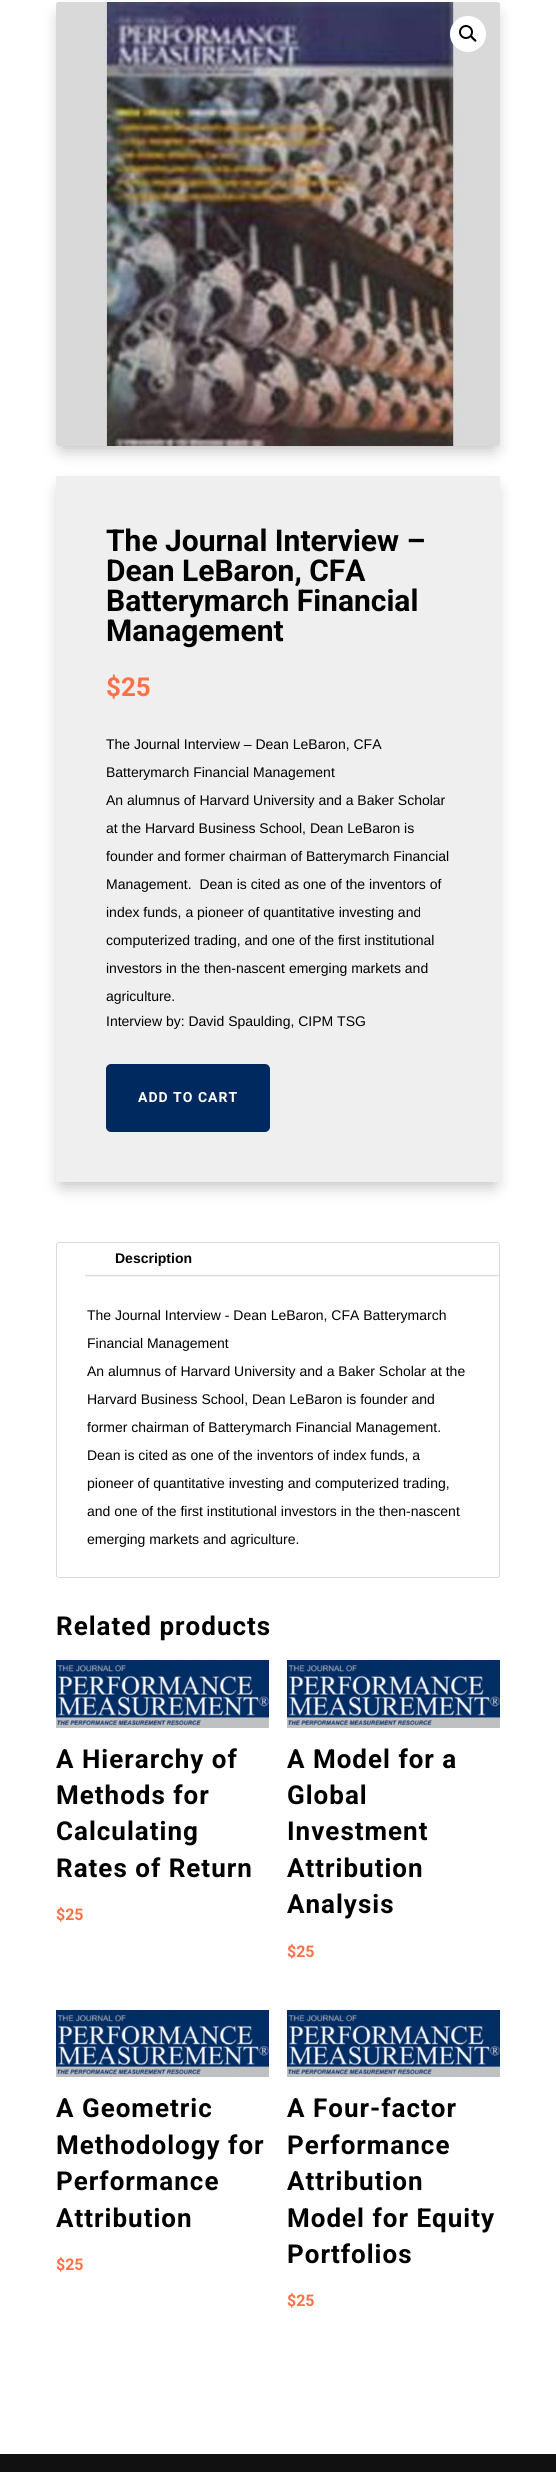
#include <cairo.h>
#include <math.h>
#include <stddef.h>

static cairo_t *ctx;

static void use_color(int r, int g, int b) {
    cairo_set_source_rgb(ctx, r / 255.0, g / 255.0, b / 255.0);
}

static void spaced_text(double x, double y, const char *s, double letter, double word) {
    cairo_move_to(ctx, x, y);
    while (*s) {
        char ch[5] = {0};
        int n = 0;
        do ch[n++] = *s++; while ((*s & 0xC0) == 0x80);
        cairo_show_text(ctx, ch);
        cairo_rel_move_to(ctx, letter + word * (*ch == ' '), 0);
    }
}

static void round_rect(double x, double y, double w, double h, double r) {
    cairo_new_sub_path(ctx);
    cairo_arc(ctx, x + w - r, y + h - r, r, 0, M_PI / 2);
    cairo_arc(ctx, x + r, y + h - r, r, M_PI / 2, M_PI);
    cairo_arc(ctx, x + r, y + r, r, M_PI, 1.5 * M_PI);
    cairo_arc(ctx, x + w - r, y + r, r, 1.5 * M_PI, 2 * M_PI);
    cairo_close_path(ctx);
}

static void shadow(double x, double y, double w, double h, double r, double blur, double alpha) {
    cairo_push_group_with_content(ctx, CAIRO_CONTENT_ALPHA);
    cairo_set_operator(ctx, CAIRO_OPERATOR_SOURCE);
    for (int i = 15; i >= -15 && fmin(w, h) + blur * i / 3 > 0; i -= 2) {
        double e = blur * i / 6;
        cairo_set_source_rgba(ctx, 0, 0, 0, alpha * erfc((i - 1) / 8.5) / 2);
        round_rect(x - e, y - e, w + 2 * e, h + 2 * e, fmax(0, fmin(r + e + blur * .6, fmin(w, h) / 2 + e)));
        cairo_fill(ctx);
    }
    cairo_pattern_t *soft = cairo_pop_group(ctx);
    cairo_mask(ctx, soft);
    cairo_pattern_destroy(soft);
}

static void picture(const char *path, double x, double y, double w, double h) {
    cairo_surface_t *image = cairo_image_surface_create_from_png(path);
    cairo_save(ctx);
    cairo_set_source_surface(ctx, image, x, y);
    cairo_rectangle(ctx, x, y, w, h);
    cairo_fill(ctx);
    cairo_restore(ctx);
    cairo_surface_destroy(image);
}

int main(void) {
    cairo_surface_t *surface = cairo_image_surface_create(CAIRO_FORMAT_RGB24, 556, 2472);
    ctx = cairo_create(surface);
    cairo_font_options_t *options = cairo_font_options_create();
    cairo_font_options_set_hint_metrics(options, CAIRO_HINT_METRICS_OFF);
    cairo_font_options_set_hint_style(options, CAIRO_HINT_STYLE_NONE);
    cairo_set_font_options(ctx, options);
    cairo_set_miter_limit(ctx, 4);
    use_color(255, 255, 255);
    cairo_paint(ctx);
    use_color(0, 0, 0);
    shadow(62, 16, 432, 432, 0, 9, 0.3);
    picture("img1.png", 56, 2, 444, 444);
    use_color(255, 255, 255);
    cairo_arc(ctx, 468, 34, 18, 0, 2 * M_PI);
    cairo_fill(ctx);
    cairo_arc(ctx, 466, 32, 6, 0, 2 * M_PI);
    use_color(0, 0, 0);
    cairo_stroke(ctx);
    cairo_new_path(ctx);
    cairo_move_to(ctx, 470.5, 36);
    cairo_curve_to(ctx, 472, 34.5, 473.5, 37.5, 474, 38);
    cairo_curve_to(ctx, 474.5, 38.5, 477.5, 40, 476, 41.5);
    cairo_curve_to(ctx, 475, 42.5, 473.5, 40, 472.5, 39.5);
    cairo_curve_to(ctx, 472, 38.5, 469.5, 37, 470.5, 36);
    cairo_close_path(ctx);
    cairo_fill(ctx);
    use_color(0, 0, 0);
    shadow(62, 490, 432, 694, 0, 9, 0.3);
    use_color(239, 239, 239);
    cairo_rectangle(ctx, 56, 476, 444, 706);
    cairo_fill(ctx);
    cairo_select_font_face(ctx, "Roboto", CAIRO_FONT_SLANT_NORMAL, CAIRO_FONT_WEIGHT_BOLD);
    cairo_set_font_size(ctx, 30);
    use_color(0, 0, 0);
    cairo_move_to(ctx, 106, 551);
    cairo_show_text(ctx, "The Journal Interview –");
    cairo_move_to(ctx, 106, 581);
    cairo_show_text(ctx, "Dean LeBaron, CFA");
    cairo_move_to(ctx, 106, 611);
    cairo_show_text(ctx, "Batterymarch Financial");
    cairo_move_to(ctx, 106, 641);
    cairo_show_text(ctx, "Management");
    cairo_set_font_size(ctx, 26);
    use_color(255, 113, 69);
    cairo_move_to(ctx, 106, 696);
    cairo_show_text(ctx, "$25");
    cairo_select_font_face(ctx, "Liberation Sans", CAIRO_FONT_SLANT_NORMAL, CAIRO_FONT_WEIGHT_NORMAL);
    cairo_set_font_size(ctx, 14);
    use_color(0, 0, 0);
    cairo_move_to(ctx, 106, 749);
    cairo_show_text(ctx, "The Journal Interview – Dean LeBaron, CFA");
    cairo_move_to(ctx, 106, 777);
    cairo_show_text(ctx, "Batterymarch Financial Management");
    cairo_move_to(ctx, 106, 805);
    cairo_show_text(ctx, "An alumnus of Harvard University and a Baker Scholar");
    cairo_move_to(ctx, 106, 833);
    cairo_show_text(ctx, "at the Harvard Business School, Dean LeBaron is");
    cairo_move_to(ctx, 106, 861);
    cairo_show_text(ctx, "founder and former chairman of Batterymarch Financial");
    cairo_move_to(ctx, 106, 889);
    cairo_show_text(ctx, "Management.  Dean is cited as one of the inventors of");
    cairo_move_to(ctx, 106, 917);
    cairo_show_text(ctx, "index funds, a pioneer of quantitative investing and");
    cairo_move_to(ctx, 106, 945);
    cairo_show_text(ctx, "computerized trading, and one of the first institutional");
    cairo_move_to(ctx, 106, 973);
    cairo_show_text(ctx, "investors in the then-nascent emerging markets and");
    cairo_move_to(ctx, 106, 1001);
    cairo_show_text(ctx, "agriculture.");
    cairo_move_to(ctx, 106, 1026);
    cairo_show_text(ctx, "Interview by: David Spaulding, CIPM TSG");
    use_color(0, 42, 95);
    round_rect(107, 1065, 162, 66, 4);
    cairo_fill_preserve(ctx);
    cairo_stroke(ctx);
    cairo_select_font_face(ctx, "Roboto", CAIRO_FONT_SLANT_NORMAL, CAIRO_FONT_WEIGHT_BOLD);
    use_color(255, 255, 255);
    spaced_text(138, 1102, "ADD TO CART", 1, 0);
    round_rect(56.5, 1242.5, 443, 335, 2.5);
    use_color(217, 217, 217);
    cairo_set_line_width(ctx, 1);
    cairo_stroke(ctx);
    use_color(244, 244, 244);
    cairo_new_path(ctx);
    cairo_move_to(ctx, 85, 1243);
    cairo_line_to(ctx, 497, 1243);
    cairo_curve_to(ctx, 498, 1243, 499, 1244, 499, 1245);
    cairo_line_to(ctx, 499, 1277);
    cairo_line_to(ctx, 85, 1277);
    cairo_close_path(ctx);
    cairo_fill(ctx);
    use_color(255, 255, 255);
    cairo_new_path(ctx);
    cairo_move_to(ctx, 85, 1243);
    cairo_line_to(ctx, 497, 1243);
    cairo_curve_to(ctx, 498, 1243, 499, 1244, 499, 1245);
    cairo_line_to(ctx, 499, 1276);
    cairo_line_to(ctx, 85, 1276);
    cairo_close_path(ctx);
    cairo_fill(ctx);
    use_color(217, 217, 217);
    cairo_rectangle(ctx, 85, 1275, 414, 1);
    cairo_fill(ctx);
    cairo_select_font_face(ctx, "Liberation Sans", CAIRO_FONT_SLANT_NORMAL, CAIRO_FONT_WEIGHT_BOLD);
    use_color(0, 0, 0);
    cairo_move_to(ctx, 115, 1263);
    cairo_show_text(ctx, "Description");
    use_color(255, 255, 255);
    cairo_new_path(ctx);
    cairo_move_to(ctx, 57, 1277);
    cairo_line_to(ctx, 499, 1277);
    cairo_line_to(ctx, 499, 1575);
    cairo_curve_to(ctx, 499, 1576, 498, 1577, 497, 1577);
    cairo_line_to(ctx, 59, 1577);
    cairo_curve_to(ctx, 58, 1577, 57, 1576, 57, 1575);
    cairo_close_path(ctx);
    cairo_fill(ctx);
    cairo_select_font_face(ctx, "Liberation Sans", CAIRO_FONT_SLANT_NORMAL, CAIRO_FONT_WEIGHT_NORMAL);
    use_color(0, 0, 0);
    cairo_move_to(ctx, 87, 1320);
    cairo_show_text(ctx, "The Journal Interview - Dean LeBaron, CFA Batterymarch");
    cairo_move_to(ctx, 87, 1348);
    cairo_show_text(ctx, "Financial Management");
    cairo_move_to(ctx, 87, 1376);
    cairo_show_text(ctx, "An alumnus of Harvard University and a Baker Scholar at the");
    cairo_move_to(ctx, 87, 1404);
    cairo_show_text(ctx, "Harvard Business School, Dean LeBaron is founder and");
    cairo_move_to(ctx, 87, 1432);
    cairo_show_text(ctx, "former chairman of Batterymarch Financial Management.");
    cairo_move_to(ctx, 87, 1460);
    cairo_show_text(ctx, "Dean is cited as one of the inventors of index funds, a");
    cairo_move_to(ctx, 87, 1488);
    cairo_show_text(ctx, "pioneer of quantitative investing and computerized trading,");
    cairo_move_to(ctx, 87, 1516);
    cairo_show_text(ctx, "and one of the first institutional investors in the then-nascent");
    cairo_move_to(ctx, 87, 1544);
    cairo_show_text(ctx, "emerging markets and agriculture.");
    cairo_select_font_face(ctx, "Roboto", CAIRO_FONT_SLANT_NORMAL, CAIRO_FONT_WEIGHT_BOLD);
    cairo_set_font_size(ctx, 26);
    spaced_text(56, 1635, "Related products", 1, 0);
    picture("img2.png", 56, 1660, 213, 68);
    spaced_text(56, 1768, "A Hierarchy of", 1, 0);
    spaced_text(56, 1804, "Methods for", 1, 0);
    spaced_text(56, 1840, "Calculating", 1, 0);
    spaced_text(56, 1877, "Rates of Return", 1, 0);
    cairo_set_font_size(ctx, 16);
    use_color(255, 113, 69);
    cairo_move_to(ctx, 56, 1920);
    cairo_show_text(ctx, "$25");
    picture("img3.png", 287, 1660, 213, 68);
    cairo_set_font_size(ctx, 26);
    use_color(0, 0, 0);
    spaced_text(287, 1768, "A Model for a", 1, 0);
    spaced_text(287, 1804, "Global", 1, 0);
    spaced_text(287, 1840, "Investment", 1, 0);
    spaced_text(287, 1877, "Attribution", 1, 0);
    spaced_text(287, 1913, "Analysis", 1, 0);
    cairo_set_font_size(ctx, 16);
    use_color(255, 113, 69);
    cairo_move_to(ctx, 287, 1957);
    cairo_show_text(ctx, "$25");
    picture("img4.png", 56, 2010, 213, 67);
    cairo_set_font_size(ctx, 26);
    use_color(0, 0, 0);
    spaced_text(56, 2117, "A Geometric", 1, 0);
    spaced_text(56, 2154, "Methodology for", 1, 0);
    spaced_text(56, 2190, "Performance", 1, 0);
    spaced_text(56, 2227, "Attribution", 1, 0);
    cairo_set_font_size(ctx, 16);
    use_color(255, 113, 69);
    cairo_move_to(ctx, 56, 2270);
    cairo_show_text(ctx, "$25");
    picture("img5.png", 287, 2010, 213, 67);
    cairo_set_font_size(ctx, 26);
    use_color(0, 0, 0);
    spaced_text(287, 2117, "A Four-factor", 1, 0);
    spaced_text(287, 2154, "Performance", 1, 0);
    spaced_text(287, 2190, "Attribution", 1, 0);
    spaced_text(287, 2227, "Model for Equity", 1, 0);
    spaced_text(287, 2263, "Portfolios", 1, 0);
    cairo_set_font_size(ctx, 16);
    use_color(255, 113, 69);
    cairo_move_to(ctx, 287, 2306);
    cairo_show_text(ctx, "$25");
    use_color(17, 17, 17);
    cairo_rectangle(ctx, 0, 2454, 556, 18);
    cairo_fill(ctx);
    cairo_surface_write_to_png(surface, "result.png");
    cairo_font_options_destroy(options);
    cairo_destroy(ctx);
    cairo_surface_destroy(surface);
    return 0;
}
